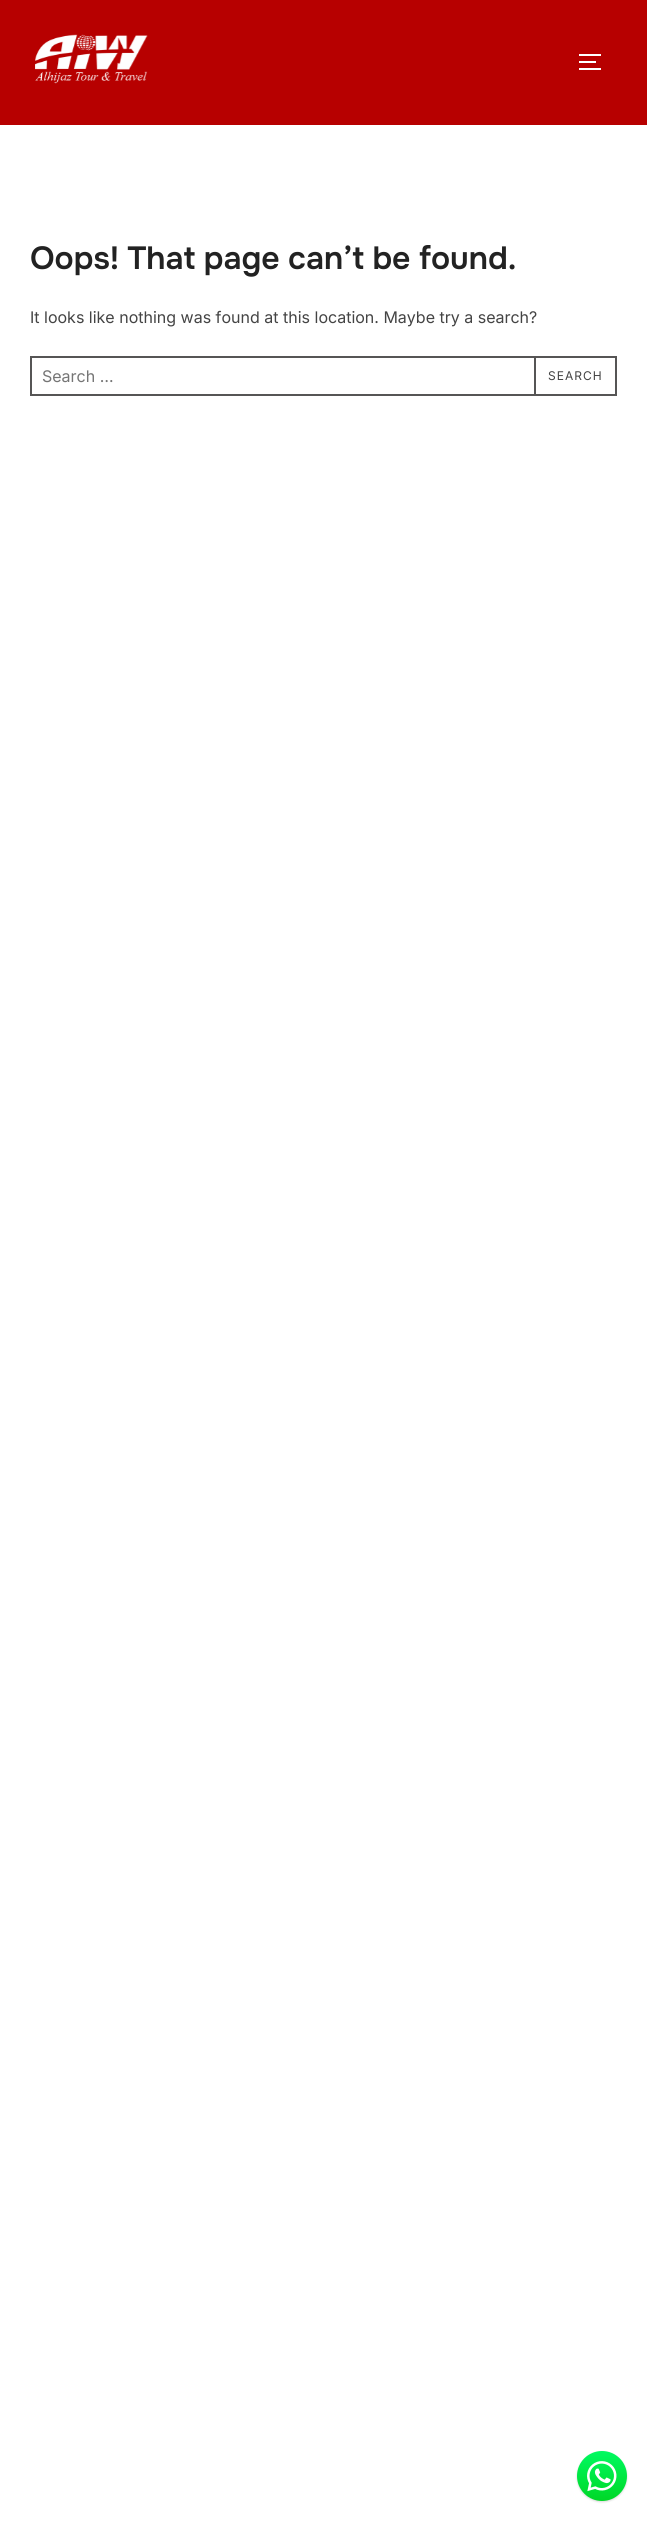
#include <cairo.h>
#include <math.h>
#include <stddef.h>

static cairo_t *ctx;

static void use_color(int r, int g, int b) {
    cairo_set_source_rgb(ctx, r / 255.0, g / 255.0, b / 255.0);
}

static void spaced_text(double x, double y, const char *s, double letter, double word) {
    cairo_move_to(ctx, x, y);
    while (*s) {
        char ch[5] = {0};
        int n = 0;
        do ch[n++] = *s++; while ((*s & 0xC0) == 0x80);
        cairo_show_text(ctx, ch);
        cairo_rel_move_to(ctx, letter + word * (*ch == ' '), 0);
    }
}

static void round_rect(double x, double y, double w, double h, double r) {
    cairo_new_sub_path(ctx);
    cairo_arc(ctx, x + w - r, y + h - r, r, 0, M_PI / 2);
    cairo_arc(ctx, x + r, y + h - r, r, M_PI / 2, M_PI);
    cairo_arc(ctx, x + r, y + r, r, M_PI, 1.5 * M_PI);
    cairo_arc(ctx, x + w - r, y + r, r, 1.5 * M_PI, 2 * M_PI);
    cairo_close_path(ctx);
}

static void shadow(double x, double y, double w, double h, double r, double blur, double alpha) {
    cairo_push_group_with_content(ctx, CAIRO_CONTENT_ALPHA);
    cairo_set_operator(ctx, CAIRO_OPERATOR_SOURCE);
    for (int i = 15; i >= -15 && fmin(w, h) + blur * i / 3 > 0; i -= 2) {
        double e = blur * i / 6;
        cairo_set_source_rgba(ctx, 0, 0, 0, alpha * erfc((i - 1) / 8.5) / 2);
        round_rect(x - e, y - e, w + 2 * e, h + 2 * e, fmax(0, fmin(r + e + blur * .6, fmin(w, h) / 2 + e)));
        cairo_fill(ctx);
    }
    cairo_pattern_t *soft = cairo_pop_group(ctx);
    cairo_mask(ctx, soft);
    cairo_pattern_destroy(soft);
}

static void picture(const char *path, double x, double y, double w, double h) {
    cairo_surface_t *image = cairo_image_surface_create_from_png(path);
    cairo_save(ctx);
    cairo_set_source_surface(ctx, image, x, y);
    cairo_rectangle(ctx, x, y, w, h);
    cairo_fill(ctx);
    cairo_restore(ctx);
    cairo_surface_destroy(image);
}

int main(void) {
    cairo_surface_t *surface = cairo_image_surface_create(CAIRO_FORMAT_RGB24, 647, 2521);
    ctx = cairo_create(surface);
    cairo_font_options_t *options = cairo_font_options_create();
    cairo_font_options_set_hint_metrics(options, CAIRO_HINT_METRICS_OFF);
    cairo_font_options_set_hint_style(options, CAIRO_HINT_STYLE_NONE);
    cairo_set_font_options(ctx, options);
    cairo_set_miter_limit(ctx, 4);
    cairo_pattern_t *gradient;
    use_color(255, 255, 255);
    cairo_paint(ctx);
    use_color(183, 0, 0);
    cairo_rectangle(ctx, 0, 0, 647, 125);
    cairo_fill(ctx);
    picture("img1.png", 35, 34, 113, 50);
    use_color(255, 255, 255);
    cairo_rectangle(ctx, 579, 54, 22, 2);
    cairo_fill(ctx);
    cairo_rectangle(ctx, 579, 61, 17, 2);
    cairo_fill(ctx);
    cairo_rectangle(ctx, 579, 68, 22, 2);
    cairo_fill(ctx);
    cairo_select_font_face(ctx, "Onest SemiBold", CAIRO_FONT_SLANT_NORMAL, CAIRO_FONT_WEIGHT_NORMAL);
    cairo_set_font_size(ctx, 32);
    use_color(34, 34, 34);
    spaced_text(30, 269, "Oops! That page can’t be found.", 0, -0.5);
    cairo_select_font_face(ctx, "Inter", CAIRO_FONT_SLANT_NORMAL, CAIRO_FONT_WEIGHT_NORMAL);
    cairo_set_font_size(ctx, 16);
    use_color(68, 68, 68);
    cairo_move_to(ctx, 30, 323);
    cairo_show_text(ctx, "It looks like nothing was found at this location. Maybe try a search?");
    cairo_rectangle(ctx, 31, 357, 585, 38);
    use_color(86, 85, 85);
    cairo_stroke(ctx);
    use_color(117, 117, 117);
    cairo_move_to(ctx, 42, 382);
    cairo_show_text(ctx, "Search …");
    cairo_rectangle(ctx, 535, 357, 81, 38);
    use_color(86, 85, 85);
    cairo_stroke(ctx);
    cairo_set_font_size(ctx, 12);
    use_color(68, 68, 68);
    spaced_text(548, 380, "SEARCH", 1, 0);
    use_color(0, 0, 0);
    shadow(577, 2452, 50, 50, 25, 1, 0.15);
    gradient = cairo_pattern_create_linear(602, 2451, 602, 2501);
    cairo_pattern_add_color_stop_rgba(gradient, 0, 0, 0.98, 0.38, 1);
    cairo_pattern_add_color_stop_rgba(gradient, 1, 0, 0.843, 0.153, 1);
    cairo_set_source(ctx, gradient);
    cairo_pattern_destroy(gradient);
    cairo_arc(ctx, 602, 2476, 25, 0, 2 * M_PI);
    cairo_fill(ctx);
    picture("img2.png", 587, 2461, 30, 31);
    cairo_surface_write_to_png(surface, "result.png");
    cairo_font_options_destroy(options);
    cairo_destroy(ctx);
    cairo_surface_destroy(surface);
    return 0;
}
